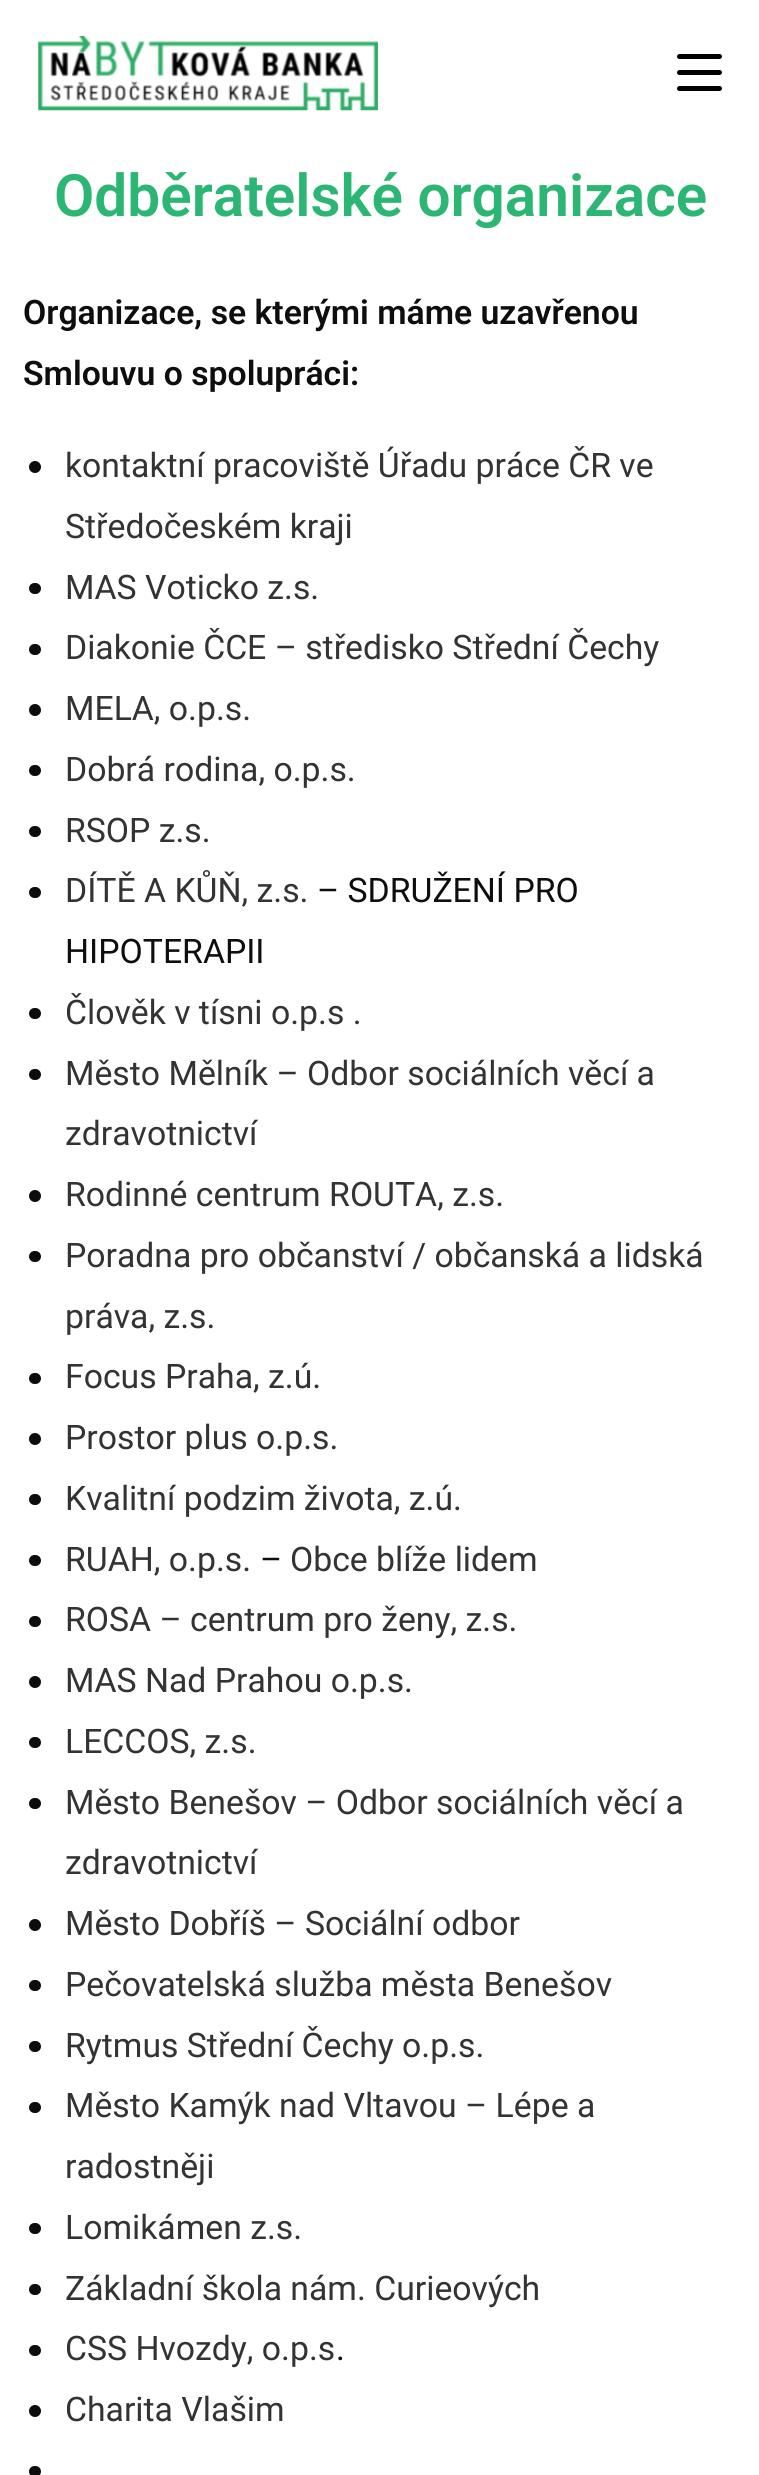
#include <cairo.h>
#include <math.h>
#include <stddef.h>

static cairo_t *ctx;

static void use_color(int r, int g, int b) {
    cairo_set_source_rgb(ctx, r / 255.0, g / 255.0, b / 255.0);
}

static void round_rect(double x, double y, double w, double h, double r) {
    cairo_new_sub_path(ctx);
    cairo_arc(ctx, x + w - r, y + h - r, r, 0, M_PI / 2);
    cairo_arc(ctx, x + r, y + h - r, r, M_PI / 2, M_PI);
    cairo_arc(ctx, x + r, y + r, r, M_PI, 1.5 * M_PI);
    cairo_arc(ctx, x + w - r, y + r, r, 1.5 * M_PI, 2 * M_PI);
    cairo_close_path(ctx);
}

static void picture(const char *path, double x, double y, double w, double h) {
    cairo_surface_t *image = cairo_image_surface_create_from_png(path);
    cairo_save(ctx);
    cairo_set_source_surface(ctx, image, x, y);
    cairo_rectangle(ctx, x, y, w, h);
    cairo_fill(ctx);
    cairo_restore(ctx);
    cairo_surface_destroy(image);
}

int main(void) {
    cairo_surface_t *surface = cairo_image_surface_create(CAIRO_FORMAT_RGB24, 759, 2475);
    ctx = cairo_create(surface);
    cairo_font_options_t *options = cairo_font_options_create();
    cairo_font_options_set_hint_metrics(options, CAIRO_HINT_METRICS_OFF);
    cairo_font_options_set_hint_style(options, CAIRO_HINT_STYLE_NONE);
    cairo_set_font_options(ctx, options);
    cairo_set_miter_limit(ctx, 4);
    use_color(255, 255, 255);
    cairo_paint(ctx);
    picture("img1.png", 38, 36, 340, 75);
    use_color(0, 0, 0);
    round_rect(677, 70, 45, 5, 2.5);
    cairo_fill(ctx);
    round_rect(677, 54, 45, 5, 2.5);
    cairo_fill(ctx);
    round_rect(677, 86, 45, 5, 2.5);
    cairo_fill(ctx);
    cairo_select_font_face(ctx, "Roboto SemiBold", CAIRO_FONT_SLANT_NORMAL, CAIRO_FONT_WEIGHT_NORMAL);
    cairo_set_font_size(ctx, 58.5);
    use_color(43, 182, 115);
    cairo_move_to(ctx, 54, 216);
    cairo_show_text(ctx, "Odběratelské organizace");
    cairo_set_font_size(ctx, 33.75);
    use_color(14, 14, 14);
    cairo_move_to(ctx, 23, 324);
    cairo_show_text(ctx, "Organizace, se kterými máme uzavřenou");
    cairo_move_to(ctx, 23, 385);
    cairo_show_text(ctx, "Smlouvu o spolupráci:");
    use_color(13, 12, 12);
    cairo_new_path(ctx);
    cairo_arc(ctx, 35, 467, 6, 0, 2 * M_PI);
    cairo_fill(ctx);
    cairo_select_font_face(ctx, "Roboto", CAIRO_FONT_SLANT_NORMAL, CAIRO_FONT_WEIGHT_NORMAL);
    use_color(51, 51, 51);
    cairo_move_to(ctx, 65, 477);
    cairo_show_text(ctx, "kontaktní pracoviště Úřadu práce ČR ve");
    cairo_move_to(ctx, 65, 538);
    cairo_show_text(ctx, "Středočeském kraji");
    use_color(13, 12, 12);
    round_rect(29, 583, 12, 11, 5.5);
    cairo_fill(ctx);
    use_color(51, 51, 51);
    cairo_move_to(ctx, 65, 599);
    cairo_show_text(ctx, "MAS Voticko z.s.");
    use_color(13, 12, 12);
    round_rect(29, 644, 12, 11, 5.5);
    cairo_fill(ctx);
    use_color(51, 51, 51);
    cairo_move_to(ctx, 65, 659);
    cairo_show_text(ctx, "Diakonie ČCE – středisko Střední Čechy");
    use_color(13, 12, 12);
    cairo_new_path(ctx);
    cairo_arc(ctx, 35, 710, 6, 0, 2 * M_PI);
    cairo_fill(ctx);
    use_color(51, 51, 51);
    cairo_move_to(ctx, 65, 720);
    cairo_show_text(ctx, "MELA, o.p.s.");
    use_color(13, 12, 12);
    round_rect(29, 765, 12, 11, 5.5);
    cairo_fill(ctx);
    use_color(51, 51, 51);
    cairo_move_to(ctx, 65, 781);
    cairo_show_text(ctx, "Dobrá rodina, o.p.s.");
    use_color(13, 12, 12);
    round_rect(29, 826, 12, 11, 5.5);
    cairo_fill(ctx);
    use_color(51, 51, 51);
    cairo_move_to(ctx, 65, 842);
    cairo_show_text(ctx, "RSOP z.s.");
    use_color(13, 12, 12);
    round_rect(29, 887, 12, 11, 5.5);
    cairo_fill(ctx);
    use_color(51, 51, 51);
    cairo_move_to(ctx, 65, 902);
    cairo_show_text(ctx, "DÍTĚ A KŮŇ, z.s.");
    use_color(14, 14, 14);
    cairo_move_to(ctx, 317, 902);
    cairo_show_text(ctx, "– SDRUŽENÍ PRO");
    cairo_move_to(ctx, 65, 963);
    cairo_show_text(ctx, "HIPOTERAPII");
    use_color(13, 12, 12);
    round_rect(29, 1008, 12, 11, 5.5);
    cairo_fill(ctx);
    use_color(51, 51, 51);
    cairo_move_to(ctx, 65, 1024);
    cairo_show_text(ctx, "Člověk v tísni o.p.s .");
    use_color(13, 12, 12);
    round_rect(29, 1069, 12, 11, 5.5);
    cairo_fill(ctx);
    use_color(51, 51, 51);
    cairo_move_to(ctx, 65, 1085);
    cairo_show_text(ctx, "Město Mělník – Odbor sociálních věcí a");
    cairo_move_to(ctx, 65, 1145);
    cairo_show_text(ctx, "zdravotnictví");
    use_color(13, 12, 12);
    cairo_new_path(ctx);
    cairo_arc(ctx, 35, 1196, 6, 0, 2 * M_PI);
    cairo_fill(ctx);
    use_color(51, 51, 51);
    cairo_move_to(ctx, 65, 1206);
    cairo_show_text(ctx, "Rodinné centrum ROUTA, z.s.");
    use_color(13, 12, 12);
    round_rect(29, 1251, 12, 11, 5.5);
    cairo_fill(ctx);
    use_color(51, 51, 51);
    cairo_move_to(ctx, 65, 1267);
    cairo_show_text(ctx, "Poradna pro občanství / občanská a lidská");
    cairo_move_to(ctx, 65, 1328);
    cairo_show_text(ctx, "práva, z.s.");
    use_color(13, 12, 12);
    round_rect(29, 1373, 12, 11, 5.5);
    cairo_fill(ctx);
    use_color(51, 51, 51);
    cairo_move_to(ctx, 65, 1388);
    cairo_show_text(ctx, "Focus Praha, z.ú.");
    use_color(13, 12, 12);
    cairo_new_path(ctx);
    cairo_arc(ctx, 35, 1439, 6, 0, 2 * M_PI);
    cairo_fill(ctx);
    use_color(51, 51, 51);
    cairo_move_to(ctx, 65, 1449);
    cairo_show_text(ctx, "Prostor plus o.p.s.");
    use_color(13, 12, 12);
    round_rect(29, 1494, 12, 11, 5.5);
    cairo_fill(ctx);
    use_color(51, 51, 51);
    cairo_move_to(ctx, 65, 1510);
    cairo_show_text(ctx, "Kvalitní podzim života, z.ú.");
    use_color(13, 12, 12);
    round_rect(29, 1555, 12, 11, 5.5);
    cairo_fill(ctx);
    use_color(51, 51, 51);
    cairo_move_to(ctx, 65, 1571);
    cairo_show_text(ctx, "RUAH, o.p.s.");
    use_color(14, 14, 14);
    cairo_move_to(ctx, 260, 1571);
    cairo_show_text(ctx, "–");
    use_color(51, 51, 51);
    cairo_move_to(ctx, 290, 1571);
    cairo_show_text(ctx, "Obce blíže lidem");
    use_color(13, 12, 12);
    round_rect(29, 1616, 12, 11, 5.5);
    cairo_fill(ctx);
    use_color(51, 51, 51);
    cairo_move_to(ctx, 65, 1631);
    cairo_show_text(ctx, "ROSA – centrum pro ženy, z.s.");
    use_color(13, 12, 12);
    cairo_new_path(ctx);
    cairo_arc(ctx, 35, 1682, 6, 0, 2 * M_PI);
    cairo_fill(ctx);
    use_color(51, 51, 51);
    cairo_move_to(ctx, 65, 1692);
    cairo_show_text(ctx, "MAS Nad Prahou o.p.s.");
    use_color(13, 12, 12);
    round_rect(29, 1737, 12, 11, 5.5);
    cairo_fill(ctx);
    use_color(51, 51, 51);
    cairo_move_to(ctx, 65, 1753);
    cairo_show_text(ctx, "LECCOS, z.s.");
    use_color(13, 12, 12);
    round_rect(29, 1798, 12, 11, 5.5);
    cairo_fill(ctx);
    use_color(51, 51, 51);
    cairo_move_to(ctx, 65, 1814);
    cairo_show_text(ctx, "Město Benešov – Odbor sociálních věcí a");
    cairo_move_to(ctx, 65, 1874);
    cairo_show_text(ctx, "zdravotnictví");
    use_color(13, 12, 12);
    cairo_new_path(ctx);
    cairo_arc(ctx, 35, 1925, 6, 0, 2 * M_PI);
    cairo_fill(ctx);
    use_color(51, 51, 51);
    cairo_move_to(ctx, 65, 1935);
    cairo_show_text(ctx, "Město Dobříš – Sociální odbor");
    use_color(13, 12, 12);
    round_rect(29, 1980, 12, 11, 5.5);
    cairo_fill(ctx);
    use_color(51, 51, 51);
    cairo_move_to(ctx, 65, 1996);
    cairo_show_text(ctx, "Pečovatelská služba města Benešov");
    use_color(13, 12, 12);
    round_rect(29, 2041, 12, 11, 5.5);
    cairo_fill(ctx);
    use_color(51, 51, 51);
    cairo_move_to(ctx, 65, 2057);
    cairo_show_text(ctx, "Rytmus Střední Čechy o.p.s.");
    use_color(13, 12, 12);
    round_rect(29, 2102, 12, 11, 5.5);
    cairo_fill(ctx);
    use_color(51, 51, 51);
    cairo_move_to(ctx, 65, 2117);
    cairo_show_text(ctx, "Město Kamýk nad Vltavou – Lépe a");
    cairo_move_to(ctx, 65, 2178);
    cairo_show_text(ctx, "radostněji");
    use_color(13, 12, 12);
    round_rect(29, 2223, 12, 11, 5.5);
    cairo_fill(ctx);
    use_color(51, 51, 51);
    cairo_move_to(ctx, 65, 2239);
    cairo_show_text(ctx, "Lomikámen z.s.");
    use_color(13, 12, 12);
    round_rect(29, 2284, 12, 11, 5.5);
    cairo_fill(ctx);
    use_color(51, 51, 51);
    cairo_move_to(ctx, 65, 2300);
    cairo_show_text(ctx, "Základní škola nám. Curieových");
    use_color(13, 12, 12);
    round_rect(29, 2345, 12, 11, 5.5);
    cairo_fill(ctx);
    use_color(51, 51, 51);
    cairo_move_to(ctx, 65, 2360);
    cairo_show_text(ctx, "CSS Hvozdy, o.p.s");
    use_color(14, 14, 14);
    cairo_move_to(ctx, 336, 2360);
    cairo_show_text(ctx, ".");
    use_color(13, 12, 12);
    cairo_new_path(ctx);
    cairo_arc(ctx, 35, 2411, 6, 0, 2 * M_PI);
    cairo_fill(ctx);
    use_color(51, 51, 51);
    cairo_move_to(ctx, 65, 2421);
    cairo_show_text(ctx, "Charita Vlašim");
    use_color(13, 12, 12);
    round_rect(29, 2466, 12, 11, 5.5);
    cairo_fill(ctx);
    cairo_surface_write_to_png(surface, "result.png");
    cairo_font_options_destroy(options);
    cairo_destroy(ctx);
    cairo_surface_destroy(surface);
    return 0;
}
